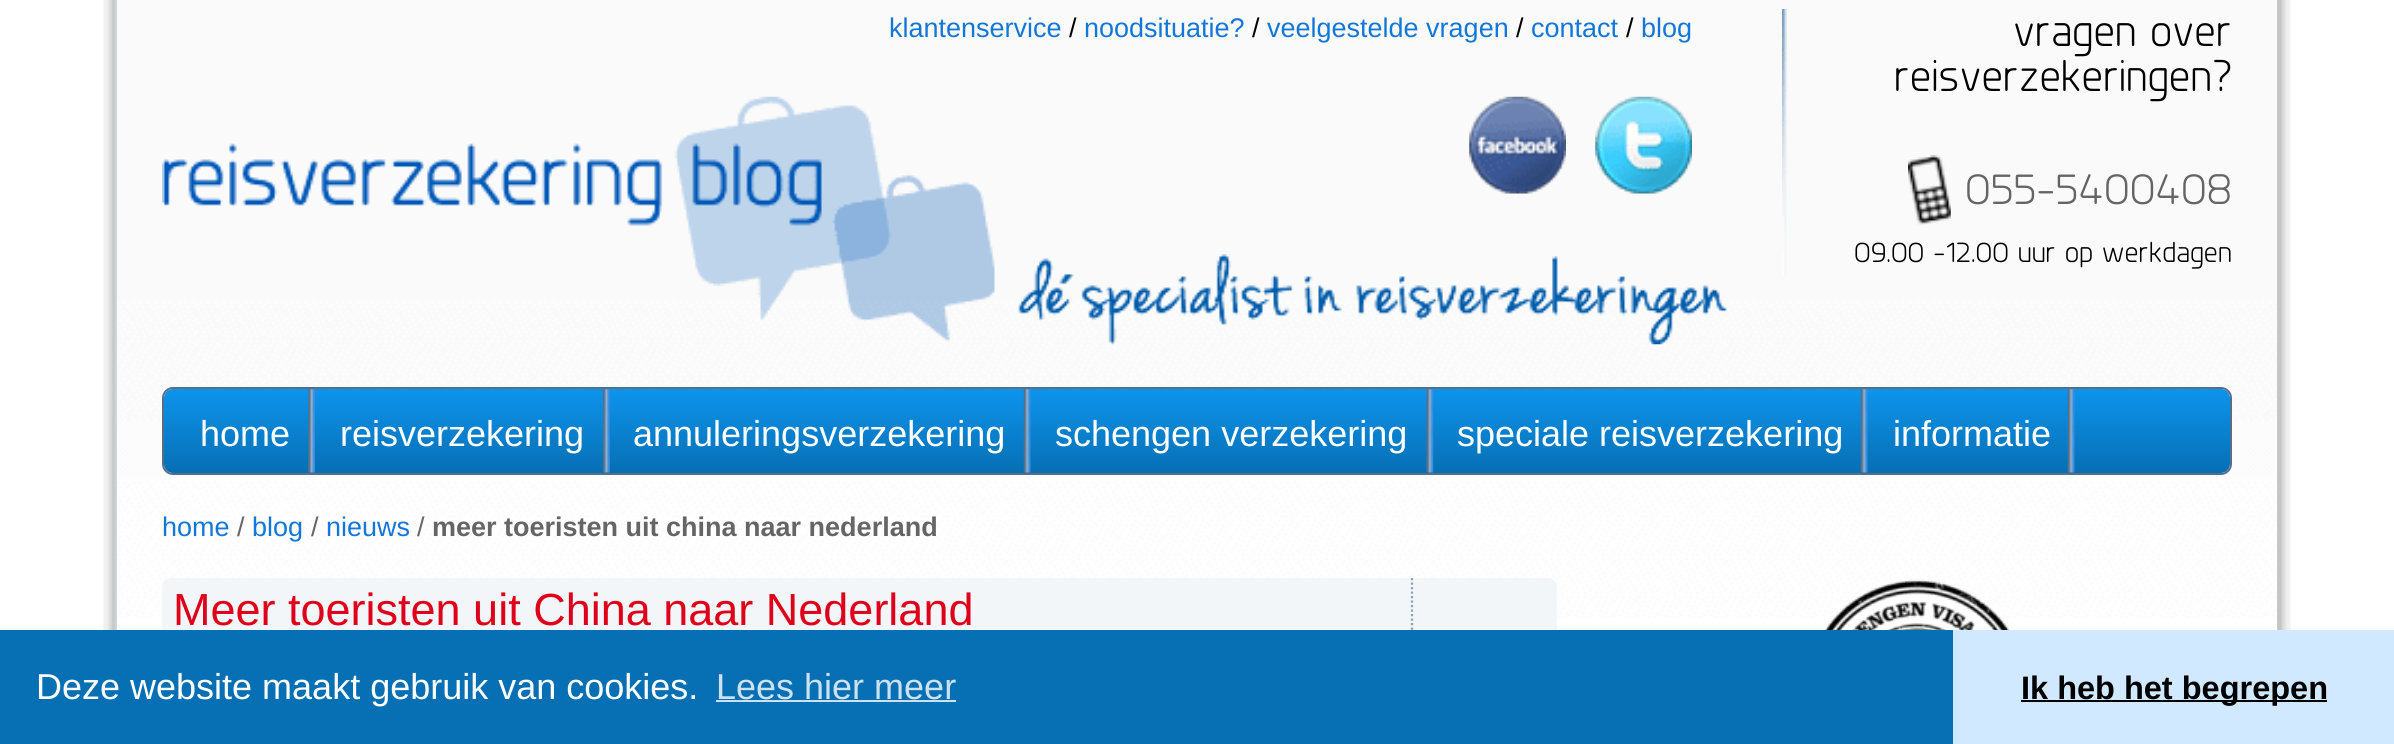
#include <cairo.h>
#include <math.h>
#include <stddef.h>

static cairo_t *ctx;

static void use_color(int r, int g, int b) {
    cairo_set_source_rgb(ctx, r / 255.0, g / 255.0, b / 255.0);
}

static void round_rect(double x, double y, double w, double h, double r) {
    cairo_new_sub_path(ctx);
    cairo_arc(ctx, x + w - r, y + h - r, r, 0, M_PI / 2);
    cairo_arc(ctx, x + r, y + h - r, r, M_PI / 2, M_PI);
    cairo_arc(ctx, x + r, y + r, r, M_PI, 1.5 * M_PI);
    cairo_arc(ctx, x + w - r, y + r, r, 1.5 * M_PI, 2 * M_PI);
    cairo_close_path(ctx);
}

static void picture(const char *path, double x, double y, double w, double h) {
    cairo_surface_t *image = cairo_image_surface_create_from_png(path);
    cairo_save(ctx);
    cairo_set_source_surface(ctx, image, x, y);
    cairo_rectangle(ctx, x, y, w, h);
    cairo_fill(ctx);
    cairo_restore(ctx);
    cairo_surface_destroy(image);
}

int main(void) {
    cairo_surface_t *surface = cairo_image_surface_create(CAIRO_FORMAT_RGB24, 2394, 744);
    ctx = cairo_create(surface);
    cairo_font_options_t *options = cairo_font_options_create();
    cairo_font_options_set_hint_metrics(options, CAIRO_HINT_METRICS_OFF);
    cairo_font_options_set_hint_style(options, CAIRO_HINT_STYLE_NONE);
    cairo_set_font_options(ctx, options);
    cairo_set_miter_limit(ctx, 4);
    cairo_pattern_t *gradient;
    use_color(255, 255, 255);
    cairo_paint(ctx);
    picture("img1.png", 103, 0, 2188, 630);
    use_color(255, 255, 255);
    cairo_rectangle(ctx, 117, 618, 2160, 12);
    cairo_fill(ctx);
    picture("img2.png", 117, 0, 2160, 618);
    cairo_select_font_face(ctx, "Liberation Sans", CAIRO_FONT_SLANT_NORMAL, CAIRO_FONT_WEIGHT_NORMAL);
    cairo_set_font_size(ctx, 27);
    use_color(18, 119, 216);
    cairo_move_to(ctx, 889, 37);
    cairo_show_text(ctx, "klantenservice");
    use_color(0, 0, 0);
    cairo_move_to(ctx, 1069, 37);
    cairo_show_text(ctx, "/");
    use_color(18, 119, 216);
    cairo_move_to(ctx, 1084, 37);
    cairo_show_text(ctx, "noodsituatie?");
    use_color(0, 0, 0);
    cairo_move_to(ctx, 1252, 37);
    cairo_show_text(ctx, "/");
    use_color(18, 119, 216);
    cairo_move_to(ctx, 1267, 37);
    cairo_show_text(ctx, "veelgestelde vragen");
    use_color(0, 0, 0);
    cairo_move_to(ctx, 1516, 37);
    cairo_show_text(ctx, "/");
    use_color(18, 119, 216);
    cairo_move_to(ctx, 1531, 37);
    cairo_show_text(ctx, "contact");
    use_color(0, 0, 0);
    cairo_move_to(ctx, 1626, 37);
    cairo_show_text(ctx, "/");
    use_color(18, 119, 216);
    cairo_move_to(ctx, 1641, 37);
    cairo_show_text(ctx, "blog");
    picture("img3.png", 1469, 96, 97, 98);
    picture("img4.png", 1595, 96, 97, 98);
    picture("img5.png", 1782, 9, 5, 268);
    cairo_select_font_face(ctx, "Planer", CAIRO_FONT_SLANT_NORMAL, CAIRO_FONT_WEIGHT_NORMAL);
    cairo_set_font_size(ctx, 45);
    use_color(0, 0, 0);
    cairo_move_to(ctx, 2013, 46);
    cairo_show_text(ctx, "vragen over");
    cairo_move_to(ctx, 1894, 91);
    cairo_show_text(ctx, "reisverzekeringen?");
    picture("img6.png", 1908, 155, 43, 70);
    use_color(101, 101, 101);
    cairo_move_to(ctx, 1965, 204);
    cairo_show_text(ctx, "055-5400408");
    cairo_set_font_size(ctx, 29.25);
    use_color(0, 0, 0);
    cairo_move_to(ctx, 1854, 262);
    cairo_show_text(ctx, "09.00 -12.00 uur op werkdagen");
    picture("img7.png", 162, 96, 833, 246);
    picture("img8.png", 1018, 254, 709, 91);
    gradient = cairo_pattern_create_linear(164, 473, 164, 389);
    cairo_pattern_add_color_stop_rgba(gradient, 0, 0.027, 0.435, 0.702, 1);
    cairo_pattern_add_color_stop_rgba(gradient, 1, 0.051, 0.58, 0.929, 1);
    cairo_set_source(ctx, gradient);
    cairo_pattern_destroy(gradient);
    round_rect(164, 389, 2066, 84, 9);
    cairo_fill(ctx);
    round_rect(163, 388, 2068, 86, 10);
    use_color(85, 111, 139);
    cairo_stroke(ctx);
    picture("img9.png", 308, 389, 7, 84);
    cairo_select_font_face(ctx, "Liberation Sans", CAIRO_FONT_SLANT_NORMAL, CAIRO_FONT_WEIGHT_NORMAL);
    cairo_set_font_size(ctx, 36);
    use_color(255, 255, 255);
    cairo_move_to(ctx, 200, 446);
    cairo_show_text(ctx, "home");
    picture("img10.png", 603, 389, 7, 84);
    cairo_move_to(ctx, 340, 446);
    cairo_show_text(ctx, "reisverzekering");
    picture("img11.png", 1023, 389, 8, 84);
    cairo_move_to(ctx, 633, 446);
    cairo_show_text(ctx, "annuleringsverzekering");
    picture("img12.png", 1426, 389, 8, 84);
    cairo_move_to(ctx, 1055, 446);
    cairo_show_text(ctx, "schengen verzekering");
    picture("img11.png", 1860, 389, 8, 84);
    cairo_move_to(ctx, 1457, 446);
    cairo_show_text(ctx, "speciale reisverzekering");
    picture("img11.png", 2067, 389, 8, 84);
    cairo_move_to(ctx, 1893, 446);
    cairo_show_text(ctx, "informatie");
    cairo_set_font_size(ctx, 27);
    use_color(18, 119, 216);
    cairo_move_to(ctx, 162, 536);
    cairo_show_text(ctx, "home");
    use_color(101, 101, 101);
    cairo_move_to(ctx, 237, 536);
    cairo_show_text(ctx, "/");
    use_color(18, 119, 216);
    cairo_move_to(ctx, 252, 536);
    cairo_show_text(ctx, "blog");
    use_color(101, 101, 101);
    cairo_move_to(ctx, 311, 536);
    cairo_show_text(ctx, "/");
    use_color(18, 119, 216);
    cairo_move_to(ctx, 326, 536);
    cairo_show_text(ctx, "nieuws");
    use_color(101, 101, 101);
    cairo_move_to(ctx, 417, 536);
    cairo_show_text(ctx, "/");
    cairo_select_font_face(ctx, "Liberation Sans", CAIRO_FONT_SLANT_NORMAL, CAIRO_FONT_WEIGHT_BOLD);
    cairo_move_to(ctx, 432, 536);
    cairo_show_text(ctx, "meer toeristen uit china naar nederland");
    use_color(243, 246, 249);
    cairo_new_path(ctx);
    cairo_move_to(ctx, 171, 578);
    cairo_line_to(ctx, 1548, 578);
    cairo_curve_to(ctx, 1553, 578, 1557, 582, 1557, 587);
    cairo_line_to(ctx, 1557, 695);
    cairo_line_to(ctx, 162, 695);
    cairo_line_to(ctx, 162, 587);
    cairo_curve_to(ctx, 162, 582, 166, 578, 171, 578);
    cairo_close_path(ctx);
    cairo_fill(ctx);
    cairo_select_font_face(ctx, "Liberation Sans", CAIRO_FONT_SLANT_NORMAL, CAIRO_FONT_WEIGHT_NORMAL);
    cairo_set_font_size(ctx, 45);
    use_color(223, 0, 25);
    cairo_move_to(ctx, 173, 625);
    cairo_show_text(ctx, "Meer toeristen uit China naar Nederland");
    cairo_new_path(ctx);
    cairo_move_to(ctx, 1412, 578);
    cairo_line_to(ctx, 1412, 695);
    use_color(139, 163, 185);
    cairo_set_line_width(ctx, 2.2);
    cairo_set_dash(ctx, (double[]){2.25, 2.25}, 2, 0);
    cairo_stroke(ctx);
    picture("img13.png", 1824, 579, 186, 51);
    use_color(7, 111, 179);
    cairo_rectangle(ctx, 0, 630, 1953, 114);
    cairo_fill(ctx);
    cairo_set_font_size(ctx, 36);
    use_color(255, 255, 255);
    cairo_move_to(ctx, 36, 699);
    cairo_show_text(ctx, "Deze website maakt gebruik van cookies.");
    use_color(205, 226, 240);
    cairo_move_to(ctx, 716, 699);
    cairo_show_text(ctx, "Lees hier meer");
    cairo_rectangle(ctx, 716, 700, 240, 2);
    cairo_fill(ctx);
    use_color(209, 233, 254);
    cairo_rectangle(ctx, 1953, 630, 441, 114);
    cairo_fill(ctx);
    use_color(0, 0, 0);
    cairo_rectangle(ctx, 2021, 700, 306, 2);
    cairo_fill(ctx);
    cairo_select_font_face(ctx, "Liberation Sans", CAIRO_FONT_SLANT_NORMAL, CAIRO_FONT_WEIGHT_BOLD);
    cairo_set_font_size(ctx, 32.5);
    cairo_move_to(ctx, 2021, 699);
    cairo_show_text(ctx, "Ik heb het begrepen");
    cairo_surface_write_to_png(surface, "result.png");
    cairo_font_options_destroy(options);
    cairo_destroy(ctx);
    cairo_surface_destroy(surface);
    return 0;
}
